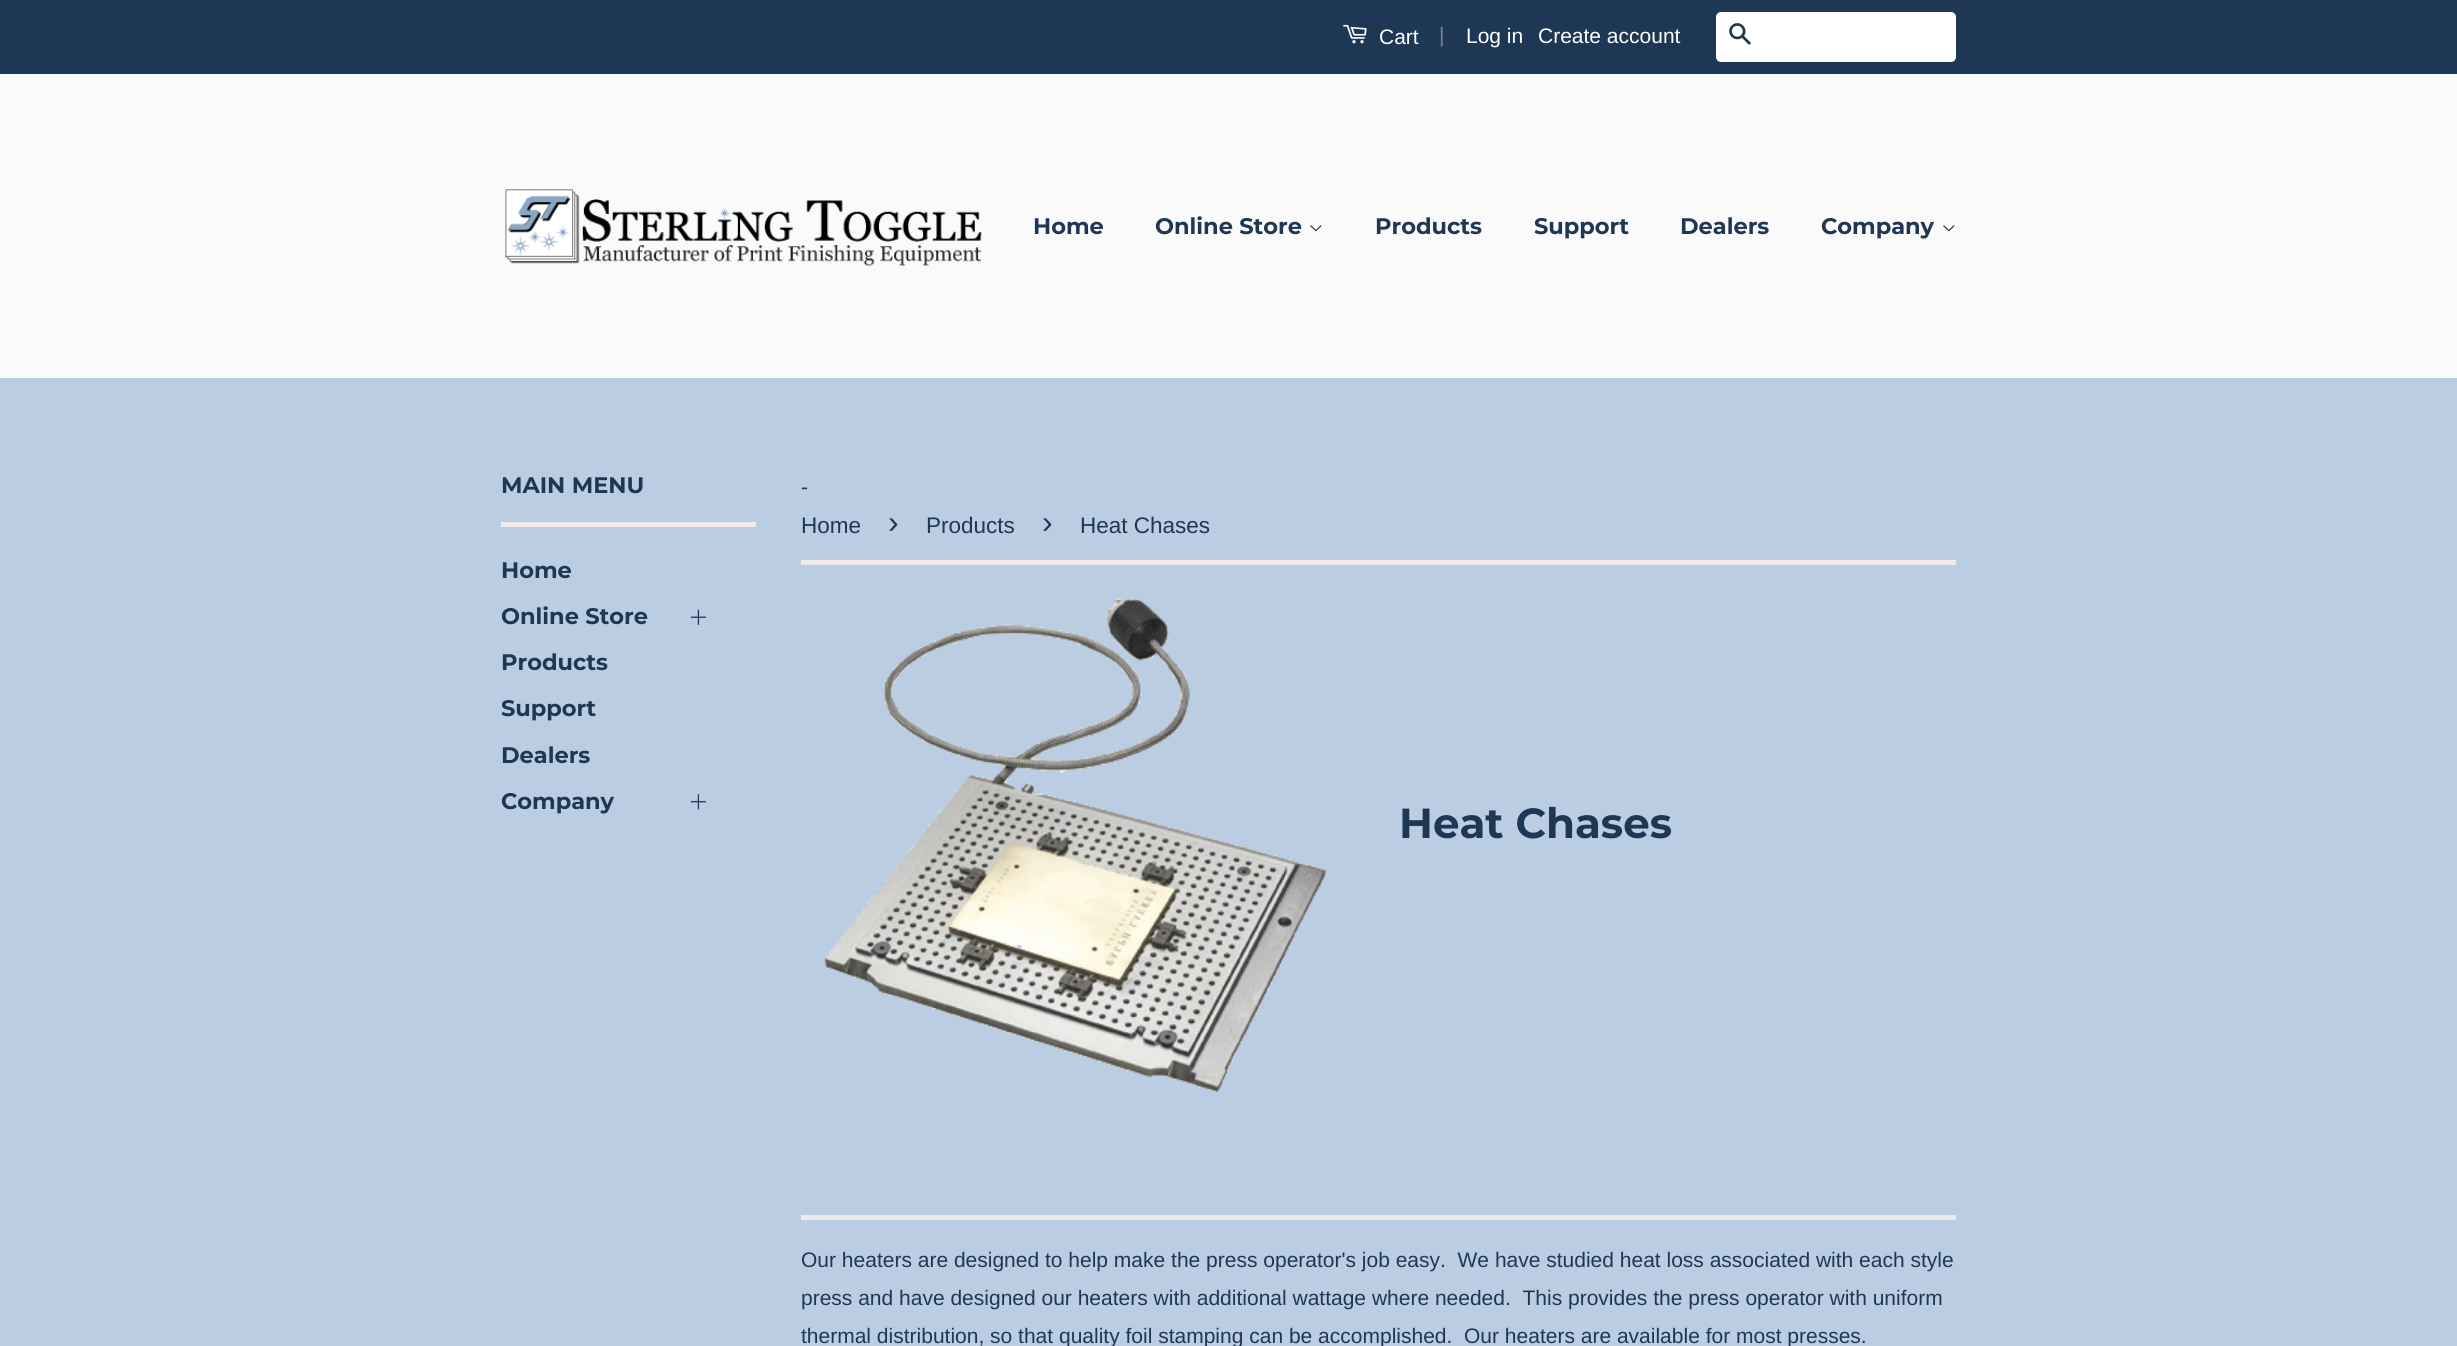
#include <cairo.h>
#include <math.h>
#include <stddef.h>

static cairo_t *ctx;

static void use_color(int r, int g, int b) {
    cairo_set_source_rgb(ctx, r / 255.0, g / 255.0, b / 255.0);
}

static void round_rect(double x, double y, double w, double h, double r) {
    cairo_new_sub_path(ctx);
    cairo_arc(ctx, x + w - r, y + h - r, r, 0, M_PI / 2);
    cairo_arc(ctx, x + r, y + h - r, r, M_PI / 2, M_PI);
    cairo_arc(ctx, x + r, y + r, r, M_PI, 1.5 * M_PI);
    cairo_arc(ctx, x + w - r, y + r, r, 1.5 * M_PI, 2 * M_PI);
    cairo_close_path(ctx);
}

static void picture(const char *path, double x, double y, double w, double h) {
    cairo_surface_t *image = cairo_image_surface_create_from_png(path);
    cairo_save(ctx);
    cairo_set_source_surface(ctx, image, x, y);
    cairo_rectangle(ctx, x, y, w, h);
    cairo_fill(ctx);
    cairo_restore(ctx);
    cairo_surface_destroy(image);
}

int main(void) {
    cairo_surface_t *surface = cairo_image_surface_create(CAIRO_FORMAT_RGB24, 2457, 1346);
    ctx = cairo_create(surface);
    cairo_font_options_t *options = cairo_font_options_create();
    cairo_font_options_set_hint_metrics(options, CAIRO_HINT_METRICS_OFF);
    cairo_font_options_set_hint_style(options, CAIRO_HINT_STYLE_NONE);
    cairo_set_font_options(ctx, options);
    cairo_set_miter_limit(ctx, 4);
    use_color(187, 205, 226);
    cairo_paint(ctx);
    use_color(30, 55, 84);
    cairo_rectangle(ctx, 0, 0, 2457, 74);
    cairo_fill(ctx);
    picture("img1.png", 1343, 24, 24, 20);
    cairo_select_font_face(ctx, "Liberation Sans", CAIRO_FONT_SLANT_NORMAL, CAIRO_FONT_WEIGHT_NORMAL);
    cairo_set_font_size(ctx, 21);
    use_color(255, 255, 255);
    cairo_move_to(ctx, 1379, 44);
    cairo_show_text(ctx, "Cart");
    use_color(120, 135, 152);
    cairo_move_to(ctx, 1439, 42);
    cairo_show_text(ctx, "|");
    use_color(255, 255, 255);
    cairo_move_to(ctx, 1466, 43);
    cairo_show_text(ctx, "Log in");
    cairo_move_to(ctx, 1538, 43);
    cairo_show_text(ctx, "Create account");
    round_rect(1716, 12, 240, 50, 5);
    cairo_fill(ctx);
    picture("img2.png", 1729, 23, 22, 22);
    use_color(250, 250, 250);
    cairo_rectangle(ctx, 0, 74, 2457, 304);
    cairo_fill(ctx);
    picture("img3.png", 505, 189, 477, 77);
    cairo_select_font_face(ctx, "Montserrat Thin", CAIRO_FONT_SLANT_NORMAL, CAIRO_FONT_WEIGHT_NORMAL);
    cairo_set_font_size(ctx, 22.5);
    use_color(30, 55, 84);
    cairo_move_to(ctx, 1033, 234);
    cairo_show_text(ctx, "Home");
    cairo_move_to(ctx, 1155, 234);
    cairo_show_text(ctx, "Online Store");
    picture("img4.png", 1310, 225, 12, 7);
    cairo_move_to(ctx, 1375, 234);
    cairo_show_text(ctx, "Products");
    cairo_move_to(ctx, 1534, 234);
    cairo_show_text(ctx, "Support");
    cairo_move_to(ctx, 1680, 234);
    cairo_show_text(ctx, "Dealers");
    cairo_move_to(ctx, 1821, 234);
    cairo_show_text(ctx, "Company");
    picture("img4.png", 1943, 225, 12, 7);
    use_color(239, 235, 235);
    cairo_rectangle(ctx, 501, 522, 255, 5);
    cairo_fill(ctx);
    use_color(30, 55, 84);
    cairo_move_to(ctx, 501, 493);
    cairo_show_text(ctx, "MAIN MENU");
    cairo_move_to(ctx, 501, 578);
    cairo_show_text(ctx, "Home");
    cairo_move_to(ctx, 501, 624);
    cairo_show_text(ctx, "Online Store");
    picture("img5.png", 690, 609, 16, 16);
    cairo_move_to(ctx, 501, 670);
    cairo_show_text(ctx, "Products");
    cairo_move_to(ctx, 501, 716);
    cairo_show_text(ctx, "Support");
    cairo_move_to(ctx, 501, 763);
    cairo_show_text(ctx, "Dealers");
    cairo_move_to(ctx, 501, 809);
    cairo_show_text(ctx, "Company");
    picture("img6.png", 690, 794, 16, 16);
    cairo_select_font_face(ctx, "Liberation Sans", CAIRO_FONT_SLANT_NORMAL, CAIRO_FONT_WEIGHT_NORMAL);
    cairo_set_font_size(ctx, 21);
    cairo_move_to(ctx, 801, 494);
    cairo_show_text(ctx, "-");
    use_color(239, 235, 235);
    cairo_rectangle(ctx, 801, 560, 1155, 5);
    cairo_fill(ctx);
    cairo_set_font_size(ctx, 22.5);
    use_color(30, 55, 84);
    cairo_move_to(ctx, 801, 533);
    cairo_show_text(ctx, "Home");
    cairo_set_font_size(ctx, 32);
    cairo_move_to(ctx, 888, 533);
    cairo_show_text(ctx, "›");
    cairo_set_font_size(ctx, 22.5);
    cairo_move_to(ctx, 926, 533);
    cairo_show_text(ctx, "Products");
    cairo_set_font_size(ctx, 32);
    cairo_move_to(ctx, 1042, 533);
    cairo_show_text(ctx, "›");
    cairo_set_font_size(ctx, 22.5);
    cairo_move_to(ctx, 1080, 533);
    cairo_show_text(ctx, "Heat Chases");
    picture("img7.png", 824, 598, 503, 495);
    cairo_select_font_face(ctx, "Montserrat Thin", CAIRO_FONT_SLANT_NORMAL, CAIRO_FONT_WEIGHT_NORMAL);
    cairo_set_font_size(ctx, 42);
    cairo_move_to(ctx, 1399, 838);
    cairo_show_text(ctx, "Heat Chases");
    use_color(239, 235, 235);
    cairo_rectangle(ctx, 801, 1215, 1155, 5);
    cairo_fill(ctx);
    cairo_select_font_face(ctx, "Liberation Sans", CAIRO_FONT_SLANT_NORMAL, CAIRO_FONT_WEIGHT_NORMAL);
    cairo_set_font_size(ctx, 21);
    use_color(30, 55, 84);
    cairo_move_to(ctx, 801, 1267);
    cairo_show_text(ctx, "Our heaters are designed to help make the press operator's job easy.  We have studied heat loss associated with each style");
    cairo_move_to(ctx, 801, 1305);
    cairo_show_text(ctx, "press and have designed our heaters with additional wattage where needed.  This provides the press operator with uniform");
    cairo_move_to(ctx, 801, 1343);
    cairo_show_text(ctx, "thermal distribution, so that quality foil stamping can be accomplished.  Our heaters are available for most presses.");
    cairo_surface_write_to_png(surface, "result.png");
    cairo_font_options_destroy(options);
    cairo_destroy(ctx);
    cairo_surface_destroy(surface);
    return 0;
}
